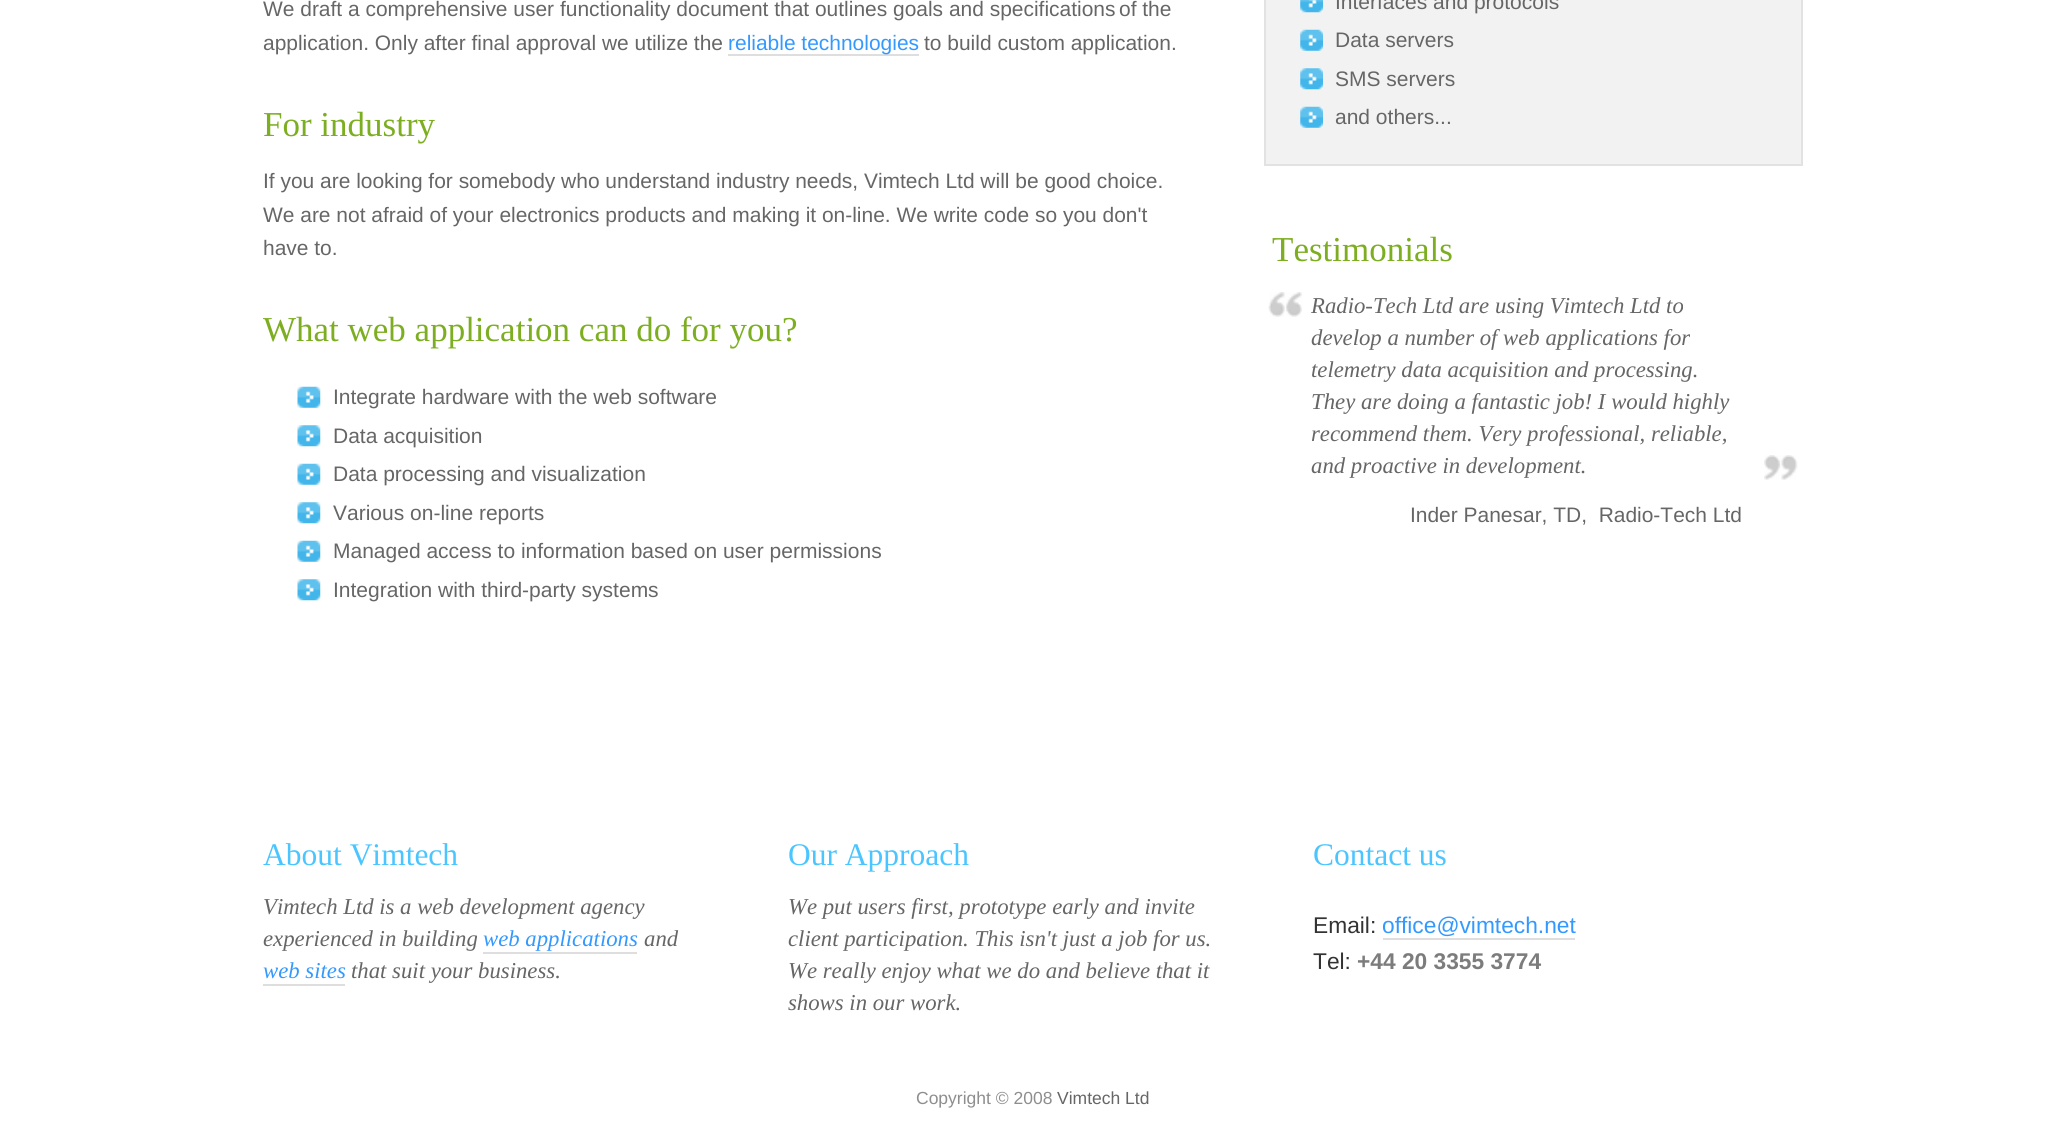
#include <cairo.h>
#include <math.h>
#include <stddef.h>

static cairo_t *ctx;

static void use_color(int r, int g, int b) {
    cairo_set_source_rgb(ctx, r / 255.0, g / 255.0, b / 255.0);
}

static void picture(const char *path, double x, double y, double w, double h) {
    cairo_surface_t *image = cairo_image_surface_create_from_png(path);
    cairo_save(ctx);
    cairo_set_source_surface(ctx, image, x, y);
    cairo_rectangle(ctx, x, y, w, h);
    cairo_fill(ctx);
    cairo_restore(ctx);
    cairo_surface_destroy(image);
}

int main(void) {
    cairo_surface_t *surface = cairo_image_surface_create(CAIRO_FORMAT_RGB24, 2064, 1122);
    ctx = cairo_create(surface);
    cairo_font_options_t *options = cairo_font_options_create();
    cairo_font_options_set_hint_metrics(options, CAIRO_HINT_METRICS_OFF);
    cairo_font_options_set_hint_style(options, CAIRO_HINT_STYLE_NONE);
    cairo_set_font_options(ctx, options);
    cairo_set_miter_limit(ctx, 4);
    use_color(255, 255, 255);
    cairo_paint(ctx);
    cairo_select_font_face(ctx, "Liberation Sans", CAIRO_FONT_SLANT_NORMAL, CAIRO_FONT_WEIGHT_NORMAL);
    cairo_set_font_size(ctx, 20.95);
    use_color(102, 102, 102);
    cairo_move_to(ctx, 263, 16);
    cairo_show_text(ctx, "We draft a comprehensive user functionality document that outlines goals and specifications");
    cairo_move_to(ctx, 1119, 16);
    cairo_show_text(ctx, "of the");
    cairo_move_to(ctx, 263, 50);
    cairo_show_text(ctx, "application. Only after final approval we utilize the");
    use_color(222, 222, 222);
    cairo_rectangle(ctx, 728, 54, 191, 2);
    cairo_fill(ctx);
    use_color(51, 153, 255);
    cairo_move_to(ctx, 728, 50);
    cairo_show_text(ctx, "reliable technologies");
    use_color(102, 102, 102);
    cairo_move_to(ctx, 924, 50);
    cairo_show_text(ctx, "to build custom application.");
    cairo_select_font_face(ctx, "Liberation Serif", CAIRO_FONT_SLANT_NORMAL, CAIRO_FONT_WEIGHT_NORMAL);
    cairo_set_font_size(ctx, 35);
    use_color(125, 174, 33);
    cairo_move_to(ctx, 263, 136);
    cairo_show_text(ctx, "For industry");
    cairo_select_font_face(ctx, "Liberation Sans", CAIRO_FONT_SLANT_NORMAL, CAIRO_FONT_WEIGHT_NORMAL);
    cairo_set_font_size(ctx, 20.95);
    use_color(102, 102, 102);
    cairo_move_to(ctx, 263, 188);
    cairo_show_text(ctx, "If you are looking for somebody who understand industry needs, Vimtech Ltd will be good choice.");
    cairo_move_to(ctx, 263, 222);
    cairo_show_text(ctx, "We are not afraid of your electronics products and making it on-line. We write code so you don't");
    cairo_move_to(ctx, 263, 255);
    cairo_show_text(ctx, "have to.");
    cairo_select_font_face(ctx, "Liberation Serif", CAIRO_FONT_SLANT_NORMAL, CAIRO_FONT_WEIGHT_NORMAL);
    cairo_set_font_size(ctx, 35);
    use_color(125, 174, 33);
    cairo_move_to(ctx, 263, 341);
    cairo_show_text(ctx, "What web application can do for you?");
    picture("img1.png", 297, 386, 24, 22);
    cairo_select_font_face(ctx, "Liberation Sans", CAIRO_FONT_SLANT_NORMAL, CAIRO_FONT_WEIGHT_NORMAL);
    cairo_set_font_size(ctx, 21);
    use_color(102, 102, 102);
    cairo_move_to(ctx, 333, 404);
    cairo_show_text(ctx, "Integrate hardware with the web software");
    picture("img2.png", 297, 425, 24, 22);
    cairo_move_to(ctx, 333, 443);
    cairo_show_text(ctx, "Data acquisition");
    picture("img1.png", 297, 463, 24, 22);
    cairo_move_to(ctx, 333, 481);
    cairo_show_text(ctx, "Data processing and visualization");
    picture("img2.png", 297, 502, 24, 22);
    cairo_move_to(ctx, 333, 520);
    cairo_show_text(ctx, "Various on-line reports");
    picture("img1.png", 297, 540, 24, 22);
    cairo_move_to(ctx, 333, 558);
    cairo_show_text(ctx, "Managed access to information based on user permissions");
    picture("img2.png", 297, 579, 24, 22);
    cairo_move_to(ctx, 333, 597);
    cairo_show_text(ctx, "Integration with third-party systems");
    use_color(242, 242, 242);
    cairo_rectangle(ctx, 1265, -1, 537, 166);
    cairo_fill_preserve(ctx);
    use_color(226, 226, 226);
    cairo_stroke(ctx);
    picture("img3.png", 1300, 0, 23, 13);
    use_color(102, 102, 102);
    cairo_move_to(ctx, 1335, 9);
    cairo_show_text(ctx, "Interfaces and protocols");
    picture("img4.png", 1300, 29, 23, 22);
    cairo_move_to(ctx, 1335, 47);
    cairo_show_text(ctx, "Data servers");
    picture("img5.png", 1300, 68, 23, 22);
    cairo_move_to(ctx, 1335, 86);
    cairo_show_text(ctx, "SMS servers");
    picture("img4.png", 1300, 106, 23, 22);
    cairo_move_to(ctx, 1335, 124);
    cairo_show_text(ctx, "and others...");
    cairo_select_font_face(ctx, "Liberation Serif", CAIRO_FONT_SLANT_NORMAL, CAIRO_FONT_WEIGHT_NORMAL);
    cairo_set_font_size(ctx, 35);
    use_color(125, 174, 33);
    cairo_move_to(ctx, 1272, 261);
    cairo_show_text(ctx, "Testimonials");
    picture("img6.png", 1764, 455, 34, 25);
    picture("img7.png", 1268, 292, 34, 25);
    cairo_select_font_face(ctx, "Liberation Serif", CAIRO_FONT_SLANT_ITALIC, CAIRO_FONT_WEIGHT_NORMAL);
    cairo_set_font_size(ctx, 22.75);
    use_color(102, 102, 102);
    cairo_move_to(ctx, 1311, 313);
    cairo_show_text(ctx, "Radio-Tech Ltd are using Vimtech Ltd to");
    cairo_move_to(ctx, 1311, 345);
    cairo_show_text(ctx, "develop a number of web applications for");
    cairo_move_to(ctx, 1311, 377);
    cairo_show_text(ctx, "telemetry data acquisition and processing.");
    cairo_move_to(ctx, 1311, 409);
    cairo_show_text(ctx, "They are doing a fantastic job! I would highly");
    cairo_move_to(ctx, 1311, 441);
    cairo_show_text(ctx, "recommend them. Very professional, reliable,");
    cairo_move_to(ctx, 1311, 473);
    cairo_show_text(ctx, "and proactive in development.");
    cairo_select_font_face(ctx, "Liberation Sans", CAIRO_FONT_SLANT_NORMAL, CAIRO_FONT_WEIGHT_NORMAL);
    cairo_set_font_size(ctx, 20.95);
    cairo_move_to(ctx, 1410, 522);
    cairo_show_text(ctx, "Inder Panesar, TD,  Radio-Tech Ltd");
    cairo_select_font_face(ctx, "Liberation Serif", CAIRO_FONT_SLANT_NORMAL, CAIRO_FONT_WEIGHT_NORMAL);
    cairo_set_font_size(ctx, 31.5);
    use_color(75, 197, 255);
    cairo_move_to(ctx, 263, 865);
    cairo_show_text(ctx, "About Vimtech");
    cairo_select_font_face(ctx, "Liberation Serif", CAIRO_FONT_SLANT_ITALIC, CAIRO_FONT_WEIGHT_NORMAL);
    cairo_set_font_size(ctx, 22.75);
    use_color(102, 102, 102);
    cairo_move_to(ctx, 263, 914);
    cairo_show_text(ctx, "Vimtech Ltd is a web development agency");
    cairo_move_to(ctx, 263, 946);
    cairo_show_text(ctx, "experienced in building");
    use_color(51, 153, 255);
    cairo_move_to(ctx, 483, 946);
    cairo_show_text(ctx, "web applications");
    use_color(222, 222, 222);
    cairo_rectangle(ctx, 483, 952, 154, 2);
    cairo_fill(ctx);
    use_color(102, 102, 102);
    cairo_move_to(ctx, 644, 946);
    cairo_show_text(ctx, "and");
    use_color(51, 153, 255);
    cairo_move_to(ctx, 263, 978);
    cairo_show_text(ctx, "web sites");
    use_color(222, 222, 222);
    cairo_rectangle(ctx, 263, 984, 82, 2);
    cairo_fill(ctx);
    use_color(102, 102, 102);
    cairo_move_to(ctx, 351, 978);
    cairo_show_text(ctx, "that suit your business.");
    cairo_select_font_face(ctx, "Liberation Serif", CAIRO_FONT_SLANT_NORMAL, CAIRO_FONT_WEIGHT_NORMAL);
    cairo_set_font_size(ctx, 31.5);
    use_color(75, 197, 255);
    cairo_move_to(ctx, 788, 865);
    cairo_show_text(ctx, "Our Approach");
    cairo_select_font_face(ctx, "Liberation Serif", CAIRO_FONT_SLANT_ITALIC, CAIRO_FONT_WEIGHT_NORMAL);
    cairo_set_font_size(ctx, 22.75);
    use_color(102, 102, 102);
    cairo_move_to(ctx, 788, 914);
    cairo_show_text(ctx, "We put users first, prototype early and invite");
    cairo_move_to(ctx, 788, 946);
    cairo_show_text(ctx, "client participation. This isn't just a job for us.");
    cairo_move_to(ctx, 788, 978);
    cairo_show_text(ctx, "We really enjoy what we do and believe that it");
    cairo_move_to(ctx, 788, 1010);
    cairo_show_text(ctx, "shows in our work.");
    cairo_select_font_face(ctx, "Liberation Serif", CAIRO_FONT_SLANT_NORMAL, CAIRO_FONT_WEIGHT_NORMAL);
    cairo_set_font_size(ctx, 31.5);
    use_color(75, 197, 255);
    cairo_move_to(ctx, 1313, 865);
    cairo_show_text(ctx, "Contact us");
    cairo_select_font_face(ctx, "Liberation Sans", CAIRO_FONT_SLANT_NORMAL, CAIRO_FONT_WEIGHT_NORMAL);
    cairo_set_font_size(ctx, 22.75);
    use_color(51, 51, 51);
    cairo_move_to(ctx, 1313, 933);
    cairo_show_text(ctx, "Email:");
    use_color(51, 153, 255);
    cairo_move_to(ctx, 1382, 933);
    cairo_show_text(ctx, "office@vimtech.net");
    use_color(222, 222, 222);
    cairo_rectangle(ctx, 1383, 938, 192, 2);
    cairo_fill(ctx);
    use_color(51, 51, 51);
    cairo_move_to(ctx, 1313, 969);
    cairo_show_text(ctx, "Tel:");
    cairo_select_font_face(ctx, "Liberation Sans", CAIRO_FONT_SLANT_NORMAL, CAIRO_FONT_WEIGHT_BOLD);
    use_color(124, 124, 124);
    cairo_move_to(ctx, 1357, 969);
    cairo_show_text(ctx, "+44 20 3355 3774");
    cairo_select_font_face(ctx, "Liberation Sans", CAIRO_FONT_SLANT_NORMAL, CAIRO_FONT_WEIGHT_NORMAL);
    cairo_set_font_size(ctx, 17.5);
    use_color(142, 142, 142);
    cairo_move_to(ctx, 916, 1104);
    cairo_show_text(ctx, "Copyright © 2008");
    use_color(102, 102, 102);
    cairo_move_to(ctx, 1057, 1104);
    cairo_show_text(ctx, "Vimtech Ltd");
    cairo_surface_write_to_png(surface, "result.png");
    cairo_font_options_destroy(options);
    cairo_destroy(ctx);
    cairo_surface_destroy(surface);
    return 0;
}
